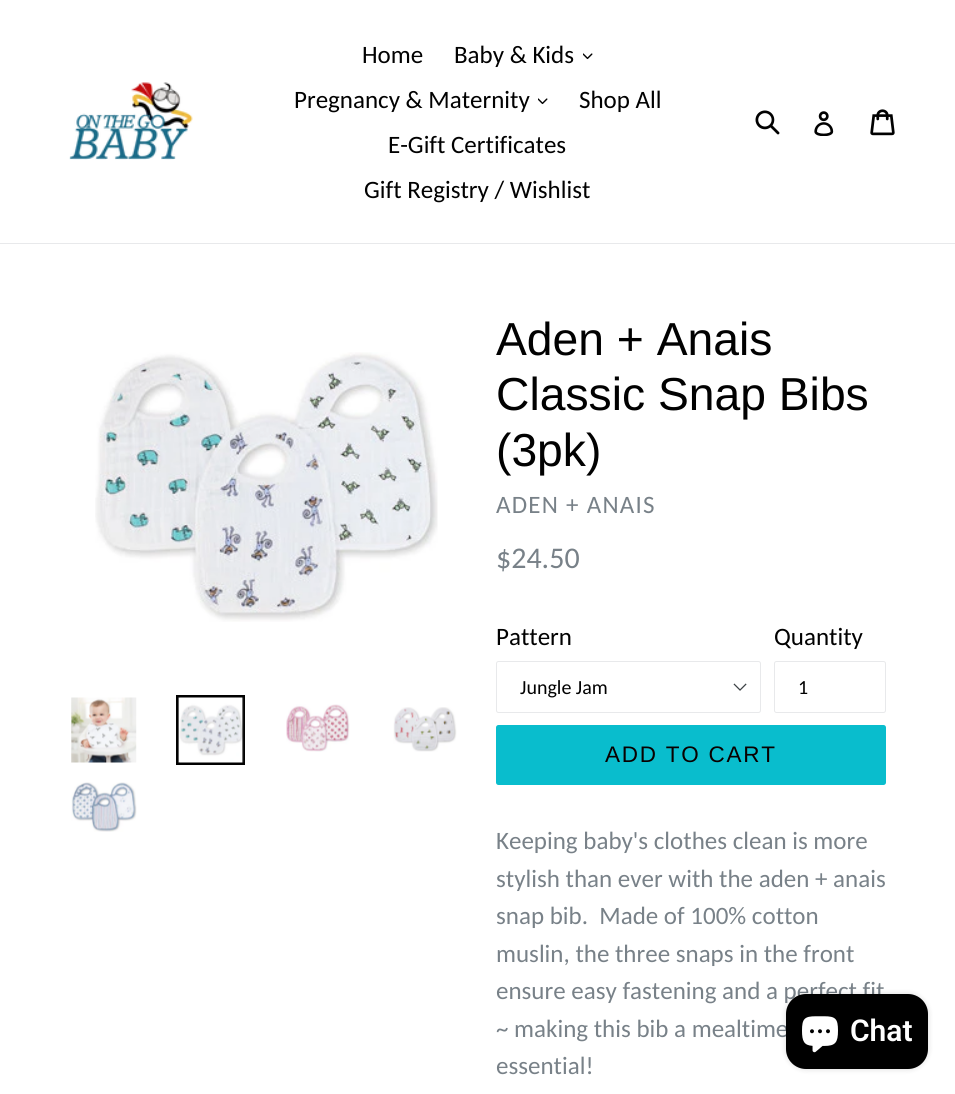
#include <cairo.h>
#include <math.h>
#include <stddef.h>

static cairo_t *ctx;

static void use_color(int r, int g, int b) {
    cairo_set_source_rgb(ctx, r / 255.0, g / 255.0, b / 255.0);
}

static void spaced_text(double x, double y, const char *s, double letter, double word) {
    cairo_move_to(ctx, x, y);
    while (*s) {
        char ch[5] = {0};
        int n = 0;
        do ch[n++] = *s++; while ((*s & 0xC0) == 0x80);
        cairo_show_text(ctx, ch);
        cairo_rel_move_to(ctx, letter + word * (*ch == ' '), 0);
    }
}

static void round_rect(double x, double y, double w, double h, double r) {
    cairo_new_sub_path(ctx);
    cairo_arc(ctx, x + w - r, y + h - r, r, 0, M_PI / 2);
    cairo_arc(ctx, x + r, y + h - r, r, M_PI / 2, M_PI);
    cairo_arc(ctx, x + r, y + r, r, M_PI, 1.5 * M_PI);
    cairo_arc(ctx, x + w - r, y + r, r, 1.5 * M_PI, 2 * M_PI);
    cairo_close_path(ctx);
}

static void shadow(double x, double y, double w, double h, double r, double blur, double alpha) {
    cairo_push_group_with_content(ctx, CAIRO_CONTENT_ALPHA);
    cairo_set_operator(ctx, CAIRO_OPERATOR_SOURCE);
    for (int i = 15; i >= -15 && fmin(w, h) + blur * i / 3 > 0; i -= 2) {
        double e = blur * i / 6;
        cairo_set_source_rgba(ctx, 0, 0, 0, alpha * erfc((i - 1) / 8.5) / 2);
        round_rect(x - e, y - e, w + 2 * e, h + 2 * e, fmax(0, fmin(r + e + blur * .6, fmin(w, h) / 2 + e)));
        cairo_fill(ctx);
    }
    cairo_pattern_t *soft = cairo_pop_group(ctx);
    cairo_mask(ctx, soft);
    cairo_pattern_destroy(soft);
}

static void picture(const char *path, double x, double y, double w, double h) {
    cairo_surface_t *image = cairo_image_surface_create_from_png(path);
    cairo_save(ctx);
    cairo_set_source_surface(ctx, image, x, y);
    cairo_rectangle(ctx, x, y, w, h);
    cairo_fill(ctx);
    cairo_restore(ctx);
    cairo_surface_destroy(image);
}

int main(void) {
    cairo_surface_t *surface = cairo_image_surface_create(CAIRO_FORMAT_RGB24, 955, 1094);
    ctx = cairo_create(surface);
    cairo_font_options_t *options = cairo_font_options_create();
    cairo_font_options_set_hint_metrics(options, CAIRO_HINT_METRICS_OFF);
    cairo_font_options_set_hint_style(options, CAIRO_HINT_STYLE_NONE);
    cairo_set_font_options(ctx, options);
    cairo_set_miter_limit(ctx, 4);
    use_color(255, 255, 255);
    cairo_paint(ctx);
    use_color(232, 233, 235);
    cairo_rectangle(ctx, 0, 243, 955, 1);
    cairo_fill(ctx);
    picture("img1.png", 69, 82, 124, 78);
    cairo_select_font_face(ctx, "Carlito", CAIRO_FONT_SLANT_NORMAL, CAIRO_FONT_WEIGHT_NORMAL);
    cairo_set_font_size(ctx, 25);
    use_color(1, 1, 1);
    cairo_move_to(ctx, 362, 63);
    cairo_show_text(ctx, "Home");
    cairo_move_to(ctx, 454, 63);
    cairo_show_text(ctx, "Baby & Kids");
    picture("img2.png", 583, 53, 10, 7);
    cairo_move_to(ctx, 294, 108);
    cairo_show_text(ctx, "Pregnancy & Maternity");
    picture("img2.png", 538, 98, 10, 7);
    cairo_move_to(ctx, 579, 108);
    cairo_show_text(ctx, "Shop All");
    cairo_move_to(ctx, 388, 153);
    cairo_show_text(ctx, "E-Gift Certificates");
    cairo_move_to(ctx, 364, 198);
    cairo_show_text(ctx, "Gift Registry / Wishlist");
    picture("img3.png", 755, 110, 25, 25);
    picture("img4.png", 814, 111, 20, 25);
    picture("img5.png", 870, 109, 25, 27);
    picture("img6.png", 95, 352, 343, 270);
    picture("img7.png", 71, 697, 66, 66);
    cairo_rectangle(ctx, 177.5, 696.5, 66, 67);
    cairo_set_line_width(ctx, 3);
    cairo_stroke(ctx);
    picture("img8.png", 178, 697, 66, 66);
    picture("img9.png", 286, 704, 64, 48);
    picture("img10.png", 393, 707, 64, 45);
    picture("img11.png", 71, 782, 66, 50);
    cairo_select_font_face(ctx, "Liberation Sans", CAIRO_FONT_SLANT_NORMAL, CAIRO_FONT_WEIGHT_NORMAL);
    cairo_set_font_size(ctx, 46.25);
    cairo_move_to(ctx, 496, 355);
    cairo_show_text(ctx, "Aden + Anais");
    cairo_move_to(ctx, 496, 410);
    cairo_show_text(ctx, "Classic Snap Bibs");
    cairo_move_to(ctx, 496, 466);
    cairo_show_text(ctx, "(3pk)");
    cairo_select_font_face(ctx, "Carlito", CAIRO_FONT_SLANT_NORMAL, CAIRO_FONT_WEIGHT_NORMAL);
    cairo_set_font_size(ctx, 25);
    use_color(120, 129, 136);
    spaced_text(496, 513, "ADEN + ANAIS", 1.25, 0);
    cairo_set_font_size(ctx, 30);
    cairo_move_to(ctx, 496, 568);
    cairo_show_text(ctx, "$24.50");
    cairo_set_font_size(ctx, 25);
    use_color(1, 1, 1);
    cairo_move_to(ctx, 496, 645);
    cairo_show_text(ctx, "Pattern");
    picture("img12.png", 733, 683, 14, 8);
    round_rect(496.5, 661.5, 264, 51, 2);
    use_color(232, 233, 235);
    cairo_set_line_width(ctx, 1);
    cairo_stroke(ctx);
    cairo_set_font_size(ctx, 20);
    use_color(1, 1, 1);
    cairo_move_to(ctx, 520, 694);
    cairo_show_text(ctx, "Jungle Jam");
    cairo_set_font_size(ctx, 25);
    cairo_move_to(ctx, 774, 645);
    cairo_show_text(ctx, "Quantity");
    round_rect(774.5, 661.5, 111, 51, 2);
    use_color(232, 233, 235);
    cairo_stroke(ctx);
    cairo_set_font_size(ctx, 20);
    use_color(1, 1, 1);
    cairo_move_to(ctx, 798, 694);
    cairo_show_text(ctx, "1");
    use_color(9, 189, 205);
    round_rect(496, 725, 390, 60, 2.5);
    cairo_fill(ctx);
    cairo_select_font_face(ctx, "Liberation Sans", CAIRO_FONT_SLANT_NORMAL, CAIRO_FONT_WEIGHT_NORMAL);
    cairo_set_font_size(ctx, 22.5);
    use_color(9, 0, 0);
    spaced_text(605, 762, "ADD TO CART", 1.75, 0);
    cairo_select_font_face(ctx, "Carlito", CAIRO_FONT_SLANT_NORMAL, CAIRO_FONT_WEIGHT_NORMAL);
    cairo_set_font_size(ctx, 25);
    use_color(120, 129, 136);
    cairo_move_to(ctx, 496, 849);
    cairo_show_text(ctx, "Keeping baby's clothes clean is more");
    cairo_move_to(ctx, 496, 887);
    cairo_show_text(ctx, "stylish than ever with the aden + anais");
    cairo_move_to(ctx, 496, 924);
    cairo_show_text(ctx, "snap bib.  Made of 100% cotton");
    cairo_move_to(ctx, 496, 962);
    cairo_show_text(ctx, "muslin, the three snaps in the front");
    cairo_move_to(ctx, 496, 999);
    cairo_show_text(ctx, "ensure easy fastening and a perfect fit");
    cairo_move_to(ctx, 496, 1037);
    cairo_show_text(ctx, "~ making this bib a mealtime");
    cairo_move_to(ctx, 496, 1074);
    cairo_show_text(ctx, "essential!");
    use_color(0, 0, 0);
    shadow(786, 994, 142, 75, 20, 3, 0.15);
    use_color(0, 0, 0);
    round_rect(786, 994, 142, 75, 20);
    cairo_fill(ctx);
    picture("img13.png", 802, 1016, 36, 37);
    cairo_select_font_face(ctx, "Roboto SemiBold", CAIRO_FONT_SLANT_NORMAL, CAIRO_FONT_WEIGHT_NORMAL);
    cairo_set_font_size(ctx, 30);
    use_color(255, 255, 255);
    cairo_move_to(ctx, 850, 1041);
    cairo_show_text(ctx, "Chat");
    cairo_surface_write_to_png(surface, "result.png");
    cairo_font_options_destroy(options);
    cairo_destroy(ctx);
    cairo_surface_destroy(surface);
    return 0;
}
